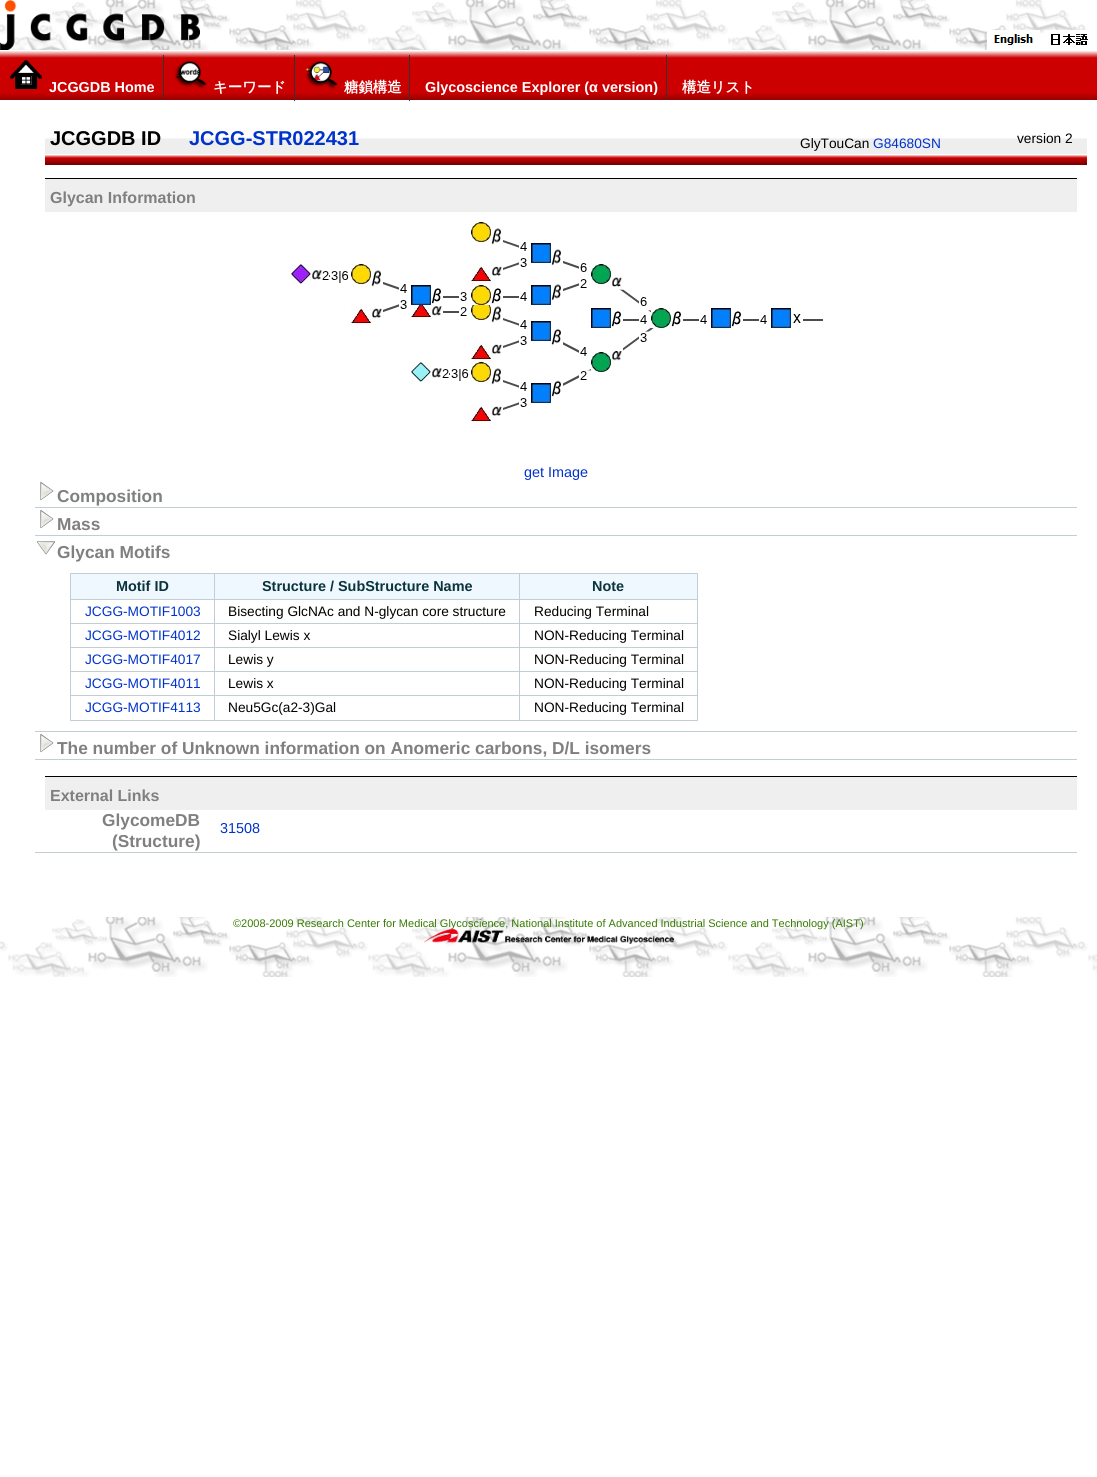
#include <cairo.h>
#include <math.h>
#include <stddef.h>

static cairo_t *ctx;

static void use_color(int r, int g, int b) {
    cairo_set_source_rgb(ctx, r / 255.0, g / 255.0, b / 255.0);
}

static void picture(const char *path, double x, double y, double w, double h) {
    cairo_surface_t *image = cairo_image_surface_create_from_png(path);
    cairo_save(ctx);
    cairo_set_source_surface(ctx, image, x, y);
    cairo_rectangle(ctx, x, y, w, h);
    cairo_fill(ctx);
    cairo_restore(ctx);
    cairo_surface_destroy(image);
}

int main(void) {
    cairo_surface_t *surface = cairo_image_surface_create(CAIRO_FORMAT_RGB24, 1097, 1477);
    ctx = cairo_create(surface);
    cairo_font_options_t *options = cairo_font_options_create();
    cairo_font_options_set_hint_metrics(options, CAIRO_HINT_METRICS_OFF);
    cairo_font_options_set_hint_style(options, CAIRO_HINT_STYLE_NONE);
    cairo_set_font_options(ctx, options);
    cairo_set_miter_limit(ctx, 4);
    use_color(255, 255, 255);
    cairo_paint(ctx);
    picture("img1.png", 0, 0, 1087, 50);
    picture("img2.png", 0, 0, 200, 50);
    picture("img3.png", 987, 30, 53, 20);
    picture("img4.png", 1044, 30, 53, 20);
    picture("img5.png", 0, 50, 1097, 50);
    use_color(51, 51, 51);
    cairo_rectangle(ctx, 163, 55, 1, 44);
    cairo_fill(ctx);
    picture("img6.png", 10, 60, 32, 29);
    cairo_select_font_face(ctx, "Liberation Sans", CAIRO_FONT_SLANT_NORMAL, CAIRO_FONT_WEIGHT_BOLD);
    cairo_set_font_size(ctx, 14.4);
    use_color(255, 255, 255);
    cairo_move_to(ctx, 49, 92);
    cairo_show_text(ctx, "JCGGDB Home");
    use_color(51, 51, 51);
    cairo_rectangle(ctx, 294, 55, 1, 46);
    cairo_fill(ctx);
    picture("img7.png", 174, 61, 33, 28);
    cairo_select_font_face(ctx, "WenQuanYi Zen Hei", CAIRO_FONT_SLANT_NORMAL, CAIRO_FONT_WEIGHT_BOLD);
    use_color(255, 255, 255);
    cairo_move_to(ctx, 213, 92);
    cairo_show_text(ctx, "キーワード");
    use_color(51, 51, 51);
    cairo_rectangle(ctx, 409, 55, 1, 46);
    cairo_fill(ctx);
    picture("img8.png", 305, 61, 33, 29);
    use_color(255, 255, 255);
    cairo_move_to(ctx, 344, 92);
    cairo_show_text(ctx, "糖鎖構造");
    use_color(51, 51, 51);
    cairo_rectangle(ctx, 666, 55, 1, 44);
    cairo_fill(ctx);
    cairo_select_font_face(ctx, "Liberation Sans", CAIRO_FONT_SLANT_NORMAL, CAIRO_FONT_WEIGHT_BOLD);
    use_color(255, 255, 255);
    cairo_move_to(ctx, 425, 92);
    cairo_show_text(ctx, "Glycoscience Explorer (α version)");
    cairo_select_font_face(ctx, "WenQuanYi Zen Hei", CAIRO_FONT_SLANT_NORMAL, CAIRO_FONT_WEIGHT_BOLD);
    cairo_move_to(ctx, 682, 92);
    cairo_show_text(ctx, "構造リスト");
    picture("img9.png", 45, 138, 1042, 27);
    cairo_select_font_face(ctx, "Liberation Sans", CAIRO_FONT_SLANT_NORMAL, CAIRO_FONT_WEIGHT_BOLD);
    cairo_set_font_size(ctx, 20);
    use_color(0, 0, 0);
    cairo_move_to(ctx, 50, 145);
    cairo_show_text(ctx, "JCGGDB ID");
    use_color(0, 51, 204);
    cairo_move_to(ctx, 189, 145);
    cairo_show_text(ctx, "JCGG-STR022431");
    cairo_select_font_face(ctx, "Liberation Sans", CAIRO_FONT_SLANT_NORMAL, CAIRO_FONT_WEIGHT_NORMAL);
    cairo_set_font_size(ctx, 13.7);
    use_color(0, 0, 0);
    cairo_move_to(ctx, 800, 148);
    cairo_show_text(ctx, "GlyTouCan");
    use_color(0, 51, 204);
    cairo_move_to(ctx, 873, 148);
    cairo_show_text(ctx, "G84680SN");
    use_color(0, 0, 0);
    cairo_move_to(ctx, 1017, 143);
    cairo_show_text(ctx, "version 2");
    use_color(239, 239, 239);
    cairo_rectangle(ctx, 45, 179, 1032, 33);
    cairo_fill(ctx);
    use_color(0, 0, 0);
    cairo_rectangle(ctx, 45, 178, 1032, 1);
    cairo_fill(ctx);
    cairo_select_font_face(ctx, "Liberation Sans", CAIRO_FONT_SLANT_NORMAL, CAIRO_FONT_WEIGHT_BOLD);
    cairo_set_font_size(ctx, 16);
    use_color(128, 128, 128);
    cairo_move_to(ctx, 50, 203);
    cairo_show_text(ctx, "Glycan Information");
    picture("img10.png", 291, 222, 532, 202);
    cairo_select_font_face(ctx, "Liberation Sans", CAIRO_FONT_SLANT_NORMAL, CAIRO_FONT_WEIGHT_NORMAL);
    cairo_set_font_size(ctx, 14.4);
    use_color(0, 51, 204);
    cairo_move_to(ctx, 524, 477);
    cairo_show_text(ctx, "get Image");
    picture("img11.png", 40, 482, 14, 19);
    cairo_select_font_face(ctx, "Liberation Sans", CAIRO_FONT_SLANT_NORMAL, CAIRO_FONT_WEIGHT_BOLD);
    cairo_set_font_size(ctx, 17.3);
    use_color(128, 128, 128);
    cairo_move_to(ctx, 57, 502);
    cairo_show_text(ctx, "Composition");
    use_color(193, 206, 212);
    cairo_rectangle(ctx, 35, 507, 1042, 1);
    cairo_fill(ctx);
    picture("img11.png", 40, 510, 14, 19);
    use_color(128, 128, 128);
    cairo_move_to(ctx, 57, 530);
    cairo_show_text(ctx, "Mass");
    use_color(193, 206, 212);
    cairo_rectangle(ctx, 35, 535, 1042, 1);
    cairo_fill(ctx);
    picture("img12.png", 36, 541, 19, 14);
    use_color(128, 128, 128);
    cairo_move_to(ctx, 57, 558);
    cairo_show_text(ctx, "Glycan Motifs");
    use_color(193, 206, 212);
    cairo_rectangle(ctx, 70, 573, 628, 1);
    cairo_fill(ctx);
    cairo_rectangle(ctx, 697, 573, 1, 148);
    cairo_fill(ctx);
    cairo_rectangle(ctx, 70, 720, 628, 1);
    cairo_fill(ctx);
    cairo_rectangle(ctx, 70, 573, 1, 148);
    cairo_fill(ctx);
    use_color(240, 248, 255);
    cairo_rectangle(ctx, 71, 574, 143, 25);
    cairo_fill(ctx);
    use_color(193, 206, 212);
    cairo_rectangle(ctx, 519, 695, 1, 26);
    cairo_fill(ctx);
    cairo_rectangle(ctx, 519, 695, 179, 1);
    cairo_fill(ctx);
    cairo_rectangle(ctx, 519, 671, 1, 25);
    cairo_fill(ctx);
    cairo_rectangle(ctx, 519, 671, 179, 1);
    cairo_fill(ctx);
    cairo_rectangle(ctx, 519, 647, 1, 25);
    cairo_fill(ctx);
    cairo_rectangle(ctx, 519, 647, 179, 1);
    cairo_fill(ctx);
    cairo_rectangle(ctx, 519, 623, 1, 25);
    cairo_fill(ctx);
    cairo_rectangle(ctx, 519, 623, 179, 1);
    cairo_fill(ctx);
    cairo_rectangle(ctx, 519, 599, 1, 25);
    cairo_fill(ctx);
    cairo_rectangle(ctx, 519, 599, 179, 1);
    cairo_fill(ctx);
    cairo_rectangle(ctx, 519, 573, 1, 27);
    cairo_fill(ctx);
    cairo_rectangle(ctx, 214, 695, 1, 26);
    cairo_fill(ctx);
    cairo_rectangle(ctx, 214, 695, 306, 1);
    cairo_fill(ctx);
    cairo_rectangle(ctx, 214, 671, 1, 25);
    cairo_fill(ctx);
    cairo_rectangle(ctx, 214, 671, 306, 1);
    cairo_fill(ctx);
    cairo_rectangle(ctx, 214, 647, 1, 25);
    cairo_fill(ctx);
    cairo_rectangle(ctx, 214, 647, 306, 1);
    cairo_fill(ctx);
    cairo_rectangle(ctx, 214, 623, 1, 25);
    cairo_fill(ctx);
    cairo_rectangle(ctx, 214, 623, 306, 1);
    cairo_fill(ctx);
    cairo_rectangle(ctx, 214, 599, 1, 25);
    cairo_fill(ctx);
    cairo_rectangle(ctx, 214, 599, 306, 1);
    cairo_fill(ctx);
    cairo_rectangle(ctx, 214, 573, 1, 27);
    cairo_fill(ctx);
    cairo_rectangle(ctx, 70, 599, 145, 1);
    cairo_fill(ctx);
    cairo_set_font_size(ctx, 14.4);
    use_color(11, 51, 60);
    cairo_move_to(ctx, 116, 591);
    cairo_show_text(ctx, "Motif ID");
    use_color(240, 248, 255);
    cairo_rectangle(ctx, 215, 574, 304, 25);
    cairo_fill(ctx);
    use_color(11, 51, 60);
    cairo_move_to(ctx, 262, 591);
    cairo_show_text(ctx, "Structure / SubStructure Name");
    use_color(240, 248, 255);
    cairo_rectangle(ctx, 520, 574, 177, 25);
    cairo_fill(ctx);
    use_color(11, 51, 60);
    cairo_move_to(ctx, 592, 591);
    cairo_show_text(ctx, "Note");
    use_color(193, 206, 212);
    cairo_rectangle(ctx, 70, 623, 145, 1);
    cairo_fill(ctx);
    cairo_select_font_face(ctx, "Liberation Sans", CAIRO_FONT_SLANT_NORMAL, CAIRO_FONT_WEIGHT_NORMAL);
    cairo_set_font_size(ctx, 13.7);
    use_color(0, 51, 204);
    cairo_move_to(ctx, 85, 616);
    cairo_show_text(ctx, "JCGG-MOTIF1003");
    use_color(0, 0, 0);
    cairo_move_to(ctx, 228, 616);
    cairo_show_text(ctx, "Bisecting GlcNAc and N-glycan core structure");
    cairo_move_to(ctx, 534, 616);
    cairo_show_text(ctx, "Reducing Terminal");
    use_color(193, 206, 212);
    cairo_rectangle(ctx, 70, 647, 145, 1);
    cairo_fill(ctx);
    use_color(0, 51, 204);
    cairo_move_to(ctx, 85, 640);
    cairo_show_text(ctx, "JCGG-MOTIF4012");
    use_color(0, 0, 0);
    cairo_move_to(ctx, 228, 640);
    cairo_show_text(ctx, "Sialyl Lewis x");
    cairo_move_to(ctx, 534, 640);
    cairo_show_text(ctx, "NON-Reducing Terminal");
    use_color(193, 206, 212);
    cairo_rectangle(ctx, 70, 671, 145, 1);
    cairo_fill(ctx);
    use_color(0, 51, 204);
    cairo_move_to(ctx, 85, 664);
    cairo_show_text(ctx, "JCGG-MOTIF4017");
    use_color(0, 0, 0);
    cairo_move_to(ctx, 228, 664);
    cairo_show_text(ctx, "Lewis y");
    cairo_move_to(ctx, 534, 664);
    cairo_show_text(ctx, "NON-Reducing Terminal");
    use_color(193, 206, 212);
    cairo_rectangle(ctx, 70, 695, 145, 1);
    cairo_fill(ctx);
    use_color(0, 51, 204);
    cairo_move_to(ctx, 85, 688);
    cairo_show_text(ctx, "JCGG-MOTIF4011");
    use_color(0, 0, 0);
    cairo_move_to(ctx, 228, 688);
    cairo_show_text(ctx, "Lewis x");
    cairo_move_to(ctx, 534, 688);
    cairo_show_text(ctx, "NON-Reducing Terminal");
    use_color(0, 51, 204);
    cairo_move_to(ctx, 85, 712);
    cairo_show_text(ctx, "JCGG-MOTIF4113");
    use_color(0, 0, 0);
    cairo_move_to(ctx, 228, 712);
    cairo_show_text(ctx, "Neu5Gc(a2-3)Gal");
    cairo_move_to(ctx, 534, 712);
    cairo_show_text(ctx, "NON-Reducing Terminal");
    use_color(193, 206, 212);
    cairo_rectangle(ctx, 35, 731, 1042, 1);
    cairo_fill(ctx);
    picture("img11.png", 40, 734, 14, 19);
    cairo_select_font_face(ctx, "Liberation Sans", CAIRO_FONT_SLANT_NORMAL, CAIRO_FONT_WEIGHT_BOLD);
    cairo_set_font_size(ctx, 17.3);
    use_color(128, 128, 128);
    cairo_move_to(ctx, 57, 754);
    cairo_show_text(ctx, "The number of Unknown information on Anomeric carbons, D/L isomers");
    use_color(193, 206, 212);
    cairo_rectangle(ctx, 35, 759, 1042, 1);
    cairo_fill(ctx);
    use_color(239, 239, 239);
    cairo_rectangle(ctx, 45, 777, 1032, 33);
    cairo_fill(ctx);
    use_color(0, 0, 0);
    cairo_rectangle(ctx, 45, 776, 1032, 1);
    cairo_fill(ctx);
    cairo_set_font_size(ctx, 16);
    use_color(128, 128, 128);
    cairo_move_to(ctx, 50, 801);
    cairo_show_text(ctx, "External Links");
    cairo_set_font_size(ctx, 17.3);
    cairo_move_to(ctx, 102, 826);
    cairo_show_text(ctx, "GlycomeDB");
    cairo_move_to(ctx, 112, 847);
    cairo_show_text(ctx, "(Structure)");
    cairo_select_font_face(ctx, "Liberation Sans", CAIRO_FONT_SLANT_NORMAL, CAIRO_FONT_WEIGHT_NORMAL);
    cairo_set_font_size(ctx, 14.4);
    use_color(0, 51, 204);
    cairo_move_to(ctx, 220, 833);
    cairo_show_text(ctx, "31508");
    use_color(193, 206, 212);
    cairo_rectangle(ctx, 35, 852, 1042, 1);
    cairo_fill(ctx);
    picture("img13.png", 0, 917, 1097, 60);
    cairo_set_font_size(ctx, 11);
    use_color(55, 123, 0);
    cairo_move_to(ctx, 233, 927);
    cairo_show_text(ctx, "©2008-2009 Research Center for Medical Glycoscience, National Institute of Advanced Industrial Science and Technology (AIST)");
    picture("img14.png", 424, 929, 250, 15);
    cairo_surface_write_to_png(surface, "result.png");
    cairo_font_options_destroy(options);
    cairo_destroy(ctx);
    cairo_surface_destroy(surface);
    return 0;
}
